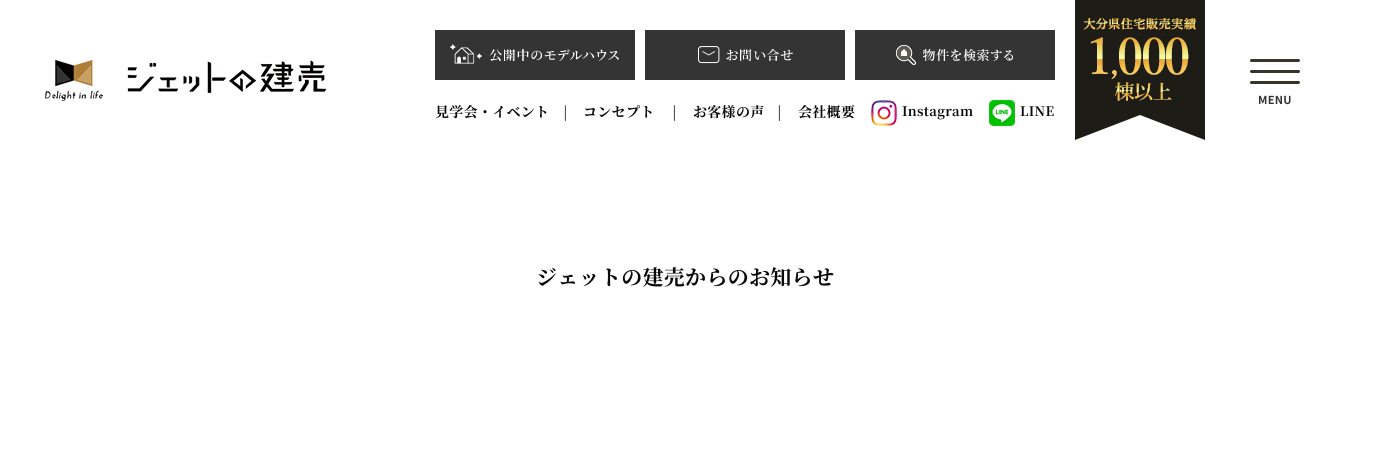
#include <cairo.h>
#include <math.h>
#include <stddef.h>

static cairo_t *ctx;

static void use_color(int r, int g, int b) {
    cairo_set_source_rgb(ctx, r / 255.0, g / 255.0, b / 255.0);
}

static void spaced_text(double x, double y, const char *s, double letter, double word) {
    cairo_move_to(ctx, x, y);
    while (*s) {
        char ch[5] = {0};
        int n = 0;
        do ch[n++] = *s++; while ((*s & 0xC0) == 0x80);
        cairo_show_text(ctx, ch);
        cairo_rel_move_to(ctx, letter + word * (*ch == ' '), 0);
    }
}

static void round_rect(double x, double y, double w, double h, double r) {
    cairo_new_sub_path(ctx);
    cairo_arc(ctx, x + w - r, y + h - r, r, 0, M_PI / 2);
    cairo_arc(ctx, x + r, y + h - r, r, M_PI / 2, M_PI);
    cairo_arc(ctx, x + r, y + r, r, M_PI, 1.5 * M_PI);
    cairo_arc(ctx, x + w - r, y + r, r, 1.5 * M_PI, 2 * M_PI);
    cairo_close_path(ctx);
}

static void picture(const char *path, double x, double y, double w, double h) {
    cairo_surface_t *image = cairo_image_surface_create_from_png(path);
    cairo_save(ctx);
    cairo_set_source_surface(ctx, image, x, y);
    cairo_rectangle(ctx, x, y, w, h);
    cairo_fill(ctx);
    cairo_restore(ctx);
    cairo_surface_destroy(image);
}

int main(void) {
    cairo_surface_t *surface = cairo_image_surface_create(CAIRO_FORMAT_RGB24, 1385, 475);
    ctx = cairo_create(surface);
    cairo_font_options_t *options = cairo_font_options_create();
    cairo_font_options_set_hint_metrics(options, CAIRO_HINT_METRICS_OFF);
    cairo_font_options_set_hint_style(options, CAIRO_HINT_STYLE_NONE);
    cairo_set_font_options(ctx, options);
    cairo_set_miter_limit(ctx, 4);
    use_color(255, 255, 255);
    cairo_paint(ctx);
    picture("img1.png", 45, 60, 281, 41);
    use_color(55, 52, 40);
    round_rect(1250, 59, 50, 3, 1.5);
    cairo_fill(ctx);
    round_rect(1250, 70, 50, 3, 1.5);
    cairo_fill(ctx);
    round_rect(1250, 81, 50, 3, 1.5);
    cairo_fill(ctx);
    cairo_select_font_face(ctx, "Noto Sans JP", CAIRO_FONT_SLANT_NORMAL, CAIRO_FONT_WEIGHT_BOLD);
    cairo_set_font_size(ctx, 11);
    use_color(51, 51, 51);
    spaced_text(1258, 104, "MENU", 0.3, 0);
    picture("img2.png", 435, 30, 200, 50);
    picture("img3.png", 645, 30, 200, 50);
    picture("img4.png", 855, 30, 200, 50);
    cairo_select_font_face(ctx, "Noto Serif JP", CAIRO_FONT_SLANT_NORMAL, CAIRO_FONT_WEIGHT_BOLD);
    cairo_set_font_size(ctx, 14);
    use_color(10, 9, 9);
    spaced_text(435, 117, "見学会・イベント", 0.3, 0);
    use_color(51, 51, 51);
    spaced_text(563, 117, "|", 0.3, 0);
    use_color(10, 9, 9);
    spaced_text(583, 117, "コンセプト", 0.3, 0);
    use_color(51, 51, 51);
    spaced_text(672, 117, "|", 0.3, 0);
    use_color(10, 9, 9);
    spaced_text(693, 117, "お客様の声", 0.3, 0);
    use_color(51, 51, 51);
    spaced_text(777, 117, "|", 0.3, 0);
    use_color(10, 9, 9);
    spaced_text(798, 117, "会社概要", 0.3, 0);
    picture("img5.png", 871, 100, 26, 26);
    cairo_set_font_size(ctx, 13);
    spaced_text(902, 116, "Instagram", 0.3, 0);
    picture("img6.png", 989, 100, 26, 26);
    spaced_text(1020, 116, "LINE", 0.3, 0);
    picture("img7.png", 1075, 0, 130, 140);
    cairo_set_font_size(ctx, 21);
    spaced_text(536, 285, "ジェットの建売からのお知らせ", 0.3, 0);
    cairo_surface_write_to_png(surface, "result.png");
    cairo_font_options_destroy(options);
    cairo_destroy(ctx);
    cairo_surface_destroy(surface);
    return 0;
}
